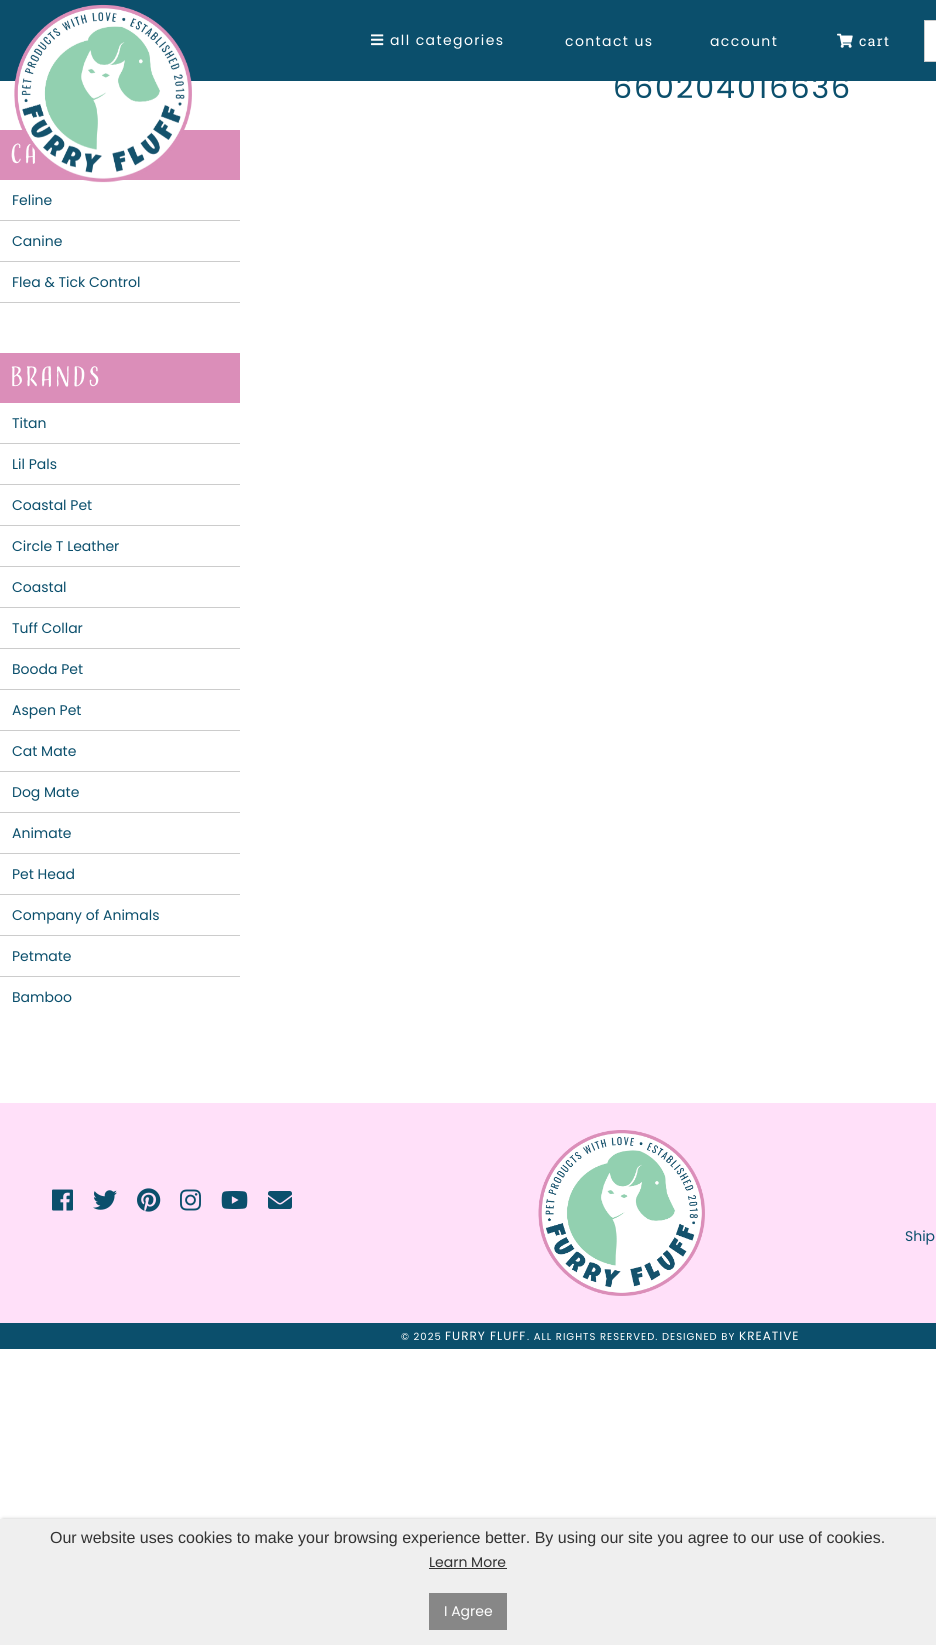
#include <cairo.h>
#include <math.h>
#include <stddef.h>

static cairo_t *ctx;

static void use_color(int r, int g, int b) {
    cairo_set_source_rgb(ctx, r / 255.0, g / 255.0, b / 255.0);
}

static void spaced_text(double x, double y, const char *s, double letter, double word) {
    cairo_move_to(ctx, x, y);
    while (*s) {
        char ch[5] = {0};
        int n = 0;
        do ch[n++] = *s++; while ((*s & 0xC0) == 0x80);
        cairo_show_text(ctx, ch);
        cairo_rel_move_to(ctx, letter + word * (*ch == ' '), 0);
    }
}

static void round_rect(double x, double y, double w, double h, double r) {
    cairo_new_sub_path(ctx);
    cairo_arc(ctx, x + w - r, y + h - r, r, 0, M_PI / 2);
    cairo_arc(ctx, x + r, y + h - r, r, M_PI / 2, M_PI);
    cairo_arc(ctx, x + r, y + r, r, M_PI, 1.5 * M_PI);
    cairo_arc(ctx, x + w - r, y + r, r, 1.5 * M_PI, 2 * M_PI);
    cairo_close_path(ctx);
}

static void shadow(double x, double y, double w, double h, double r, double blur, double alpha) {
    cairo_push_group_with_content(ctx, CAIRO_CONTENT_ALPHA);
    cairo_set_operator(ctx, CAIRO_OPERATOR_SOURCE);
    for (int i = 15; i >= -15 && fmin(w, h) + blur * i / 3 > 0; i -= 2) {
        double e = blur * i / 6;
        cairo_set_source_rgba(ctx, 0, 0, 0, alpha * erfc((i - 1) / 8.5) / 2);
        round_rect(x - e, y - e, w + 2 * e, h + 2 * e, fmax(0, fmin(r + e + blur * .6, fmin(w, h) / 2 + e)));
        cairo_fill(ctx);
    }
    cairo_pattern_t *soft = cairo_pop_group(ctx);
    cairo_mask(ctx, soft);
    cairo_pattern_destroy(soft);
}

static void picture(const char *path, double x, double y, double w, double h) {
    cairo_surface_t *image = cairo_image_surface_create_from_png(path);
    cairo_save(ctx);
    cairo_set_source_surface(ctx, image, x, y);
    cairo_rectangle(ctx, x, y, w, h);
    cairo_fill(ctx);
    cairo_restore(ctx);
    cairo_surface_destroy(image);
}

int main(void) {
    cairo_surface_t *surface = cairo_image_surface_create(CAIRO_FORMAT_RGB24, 936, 1645);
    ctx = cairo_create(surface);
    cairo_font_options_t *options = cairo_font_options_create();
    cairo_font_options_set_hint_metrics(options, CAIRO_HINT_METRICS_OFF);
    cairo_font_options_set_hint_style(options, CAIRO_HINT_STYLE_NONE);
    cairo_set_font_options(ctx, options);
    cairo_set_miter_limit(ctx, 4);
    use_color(255, 255, 255);
    cairo_paint(ctx);
    use_color(11, 79, 108);
    cairo_rectangle(ctx, 0, 0, 936, 81);
    cairo_fill(ctx);
    use_color(219, 142, 185);
    cairo_rectangle(ctx, 0, 130, 240, 50);
    cairo_fill(ctx);
    cairo_select_font_face(ctx, "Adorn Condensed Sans", CAIRO_FONT_SLANT_NORMAL, CAIRO_FONT_WEIGHT_NORMAL);
    cairo_set_font_size(ctx, 26);
    use_color(255, 255, 255);
    spaced_text(10, 163, "CA", 2, 0);
    picture("img1.png", 14, 4, 178, 179);
    picture("img2.png", 371, 34, 13, 12);
    cairo_select_font_face(ctx, "Poppins", CAIRO_FONT_SLANT_NORMAL, CAIRO_FONT_WEIGHT_NORMAL);
    cairo_set_font_size(ctx, 14);
    spaced_text(390, 45, "all categories", 1.4, 0);
    spaced_text(565, 46, "contact us", 1.4, 0);
    spaced_text(710, 46, "account", 1.4, 0);
    picture("img3.png", 837, 33, 16, 15);
    cairo_select_font_face(ctx, "Roboto Slab", CAIRO_FONT_SLANT_NORMAL, CAIRO_FONT_WEIGHT_NORMAL);
    spaced_text(859, 46, "cart", 1.4, 0);
    cairo_rectangle(ctx, 924.5, 20.5, 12, 41);
    cairo_fill_preserve(ctx);
    use_color(204, 204, 204);
    cairo_set_line_width(ctx, 1);
    cairo_stroke(ctx);
    cairo_select_font_face(ctx, "Poppins", CAIRO_FONT_SLANT_NORMAL, CAIRO_FONT_WEIGHT_NORMAL);
    cairo_set_font_size(ctx, 30);
    use_color(11, 79, 108);
    spaced_text(613, 98, "660204016636", 2, 0);
    use_color(204, 204, 204);
    cairo_rectangle(ctx, 0, 220, 240, 1);
    cairo_fill(ctx);
    cairo_set_font_size(ctx, 14);
    use_color(11, 79, 108);
    cairo_move_to(ctx, 12, 205);
    cairo_show_text(ctx, "Feline");
    use_color(204, 204, 204);
    cairo_rectangle(ctx, 0, 261, 240, 1);
    cairo_fill(ctx);
    use_color(11, 79, 108);
    cairo_move_to(ctx, 12, 246);
    cairo_show_text(ctx, "Canine");
    use_color(204, 204, 204);
    cairo_rectangle(ctx, 0, 302, 240, 1);
    cairo_fill(ctx);
    use_color(11, 79, 108);
    cairo_move_to(ctx, 12, 287);
    cairo_show_text(ctx, "Flea & Tick Control");
    use_color(219, 142, 185);
    cairo_rectangle(ctx, 0, 353, 240, 50);
    cairo_fill(ctx);
    cairo_select_font_face(ctx, "Adorn Condensed Sans", CAIRO_FONT_SLANT_NORMAL, CAIRO_FONT_WEIGHT_NORMAL);
    cairo_set_font_size(ctx, 26);
    use_color(255, 255, 255);
    spaced_text(10, 386, "BRANDS", 2, 0);
    use_color(204, 204, 204);
    cairo_rectangle(ctx, 0, 443, 240, 1);
    cairo_fill(ctx);
    cairo_select_font_face(ctx, "Poppins", CAIRO_FONT_SLANT_NORMAL, CAIRO_FONT_WEIGHT_NORMAL);
    cairo_set_font_size(ctx, 14);
    use_color(11, 79, 108);
    cairo_move_to(ctx, 12, 428);
    cairo_show_text(ctx, "Titan");
    use_color(204, 204, 204);
    cairo_rectangle(ctx, 0, 484, 240, 1);
    cairo_fill(ctx);
    use_color(11, 79, 108);
    cairo_move_to(ctx, 12, 469);
    cairo_show_text(ctx, "Lil Pals");
    use_color(204, 204, 204);
    cairo_rectangle(ctx, 0, 525, 240, 1);
    cairo_fill(ctx);
    use_color(11, 79, 108);
    cairo_move_to(ctx, 12, 510);
    cairo_show_text(ctx, "Coastal Pet");
    use_color(204, 204, 204);
    cairo_rectangle(ctx, 0, 566, 240, 1);
    cairo_fill(ctx);
    use_color(11, 79, 108);
    cairo_move_to(ctx, 12, 551);
    cairo_show_text(ctx, "Circle T Leather");
    use_color(204, 204, 204);
    cairo_rectangle(ctx, 0, 607, 240, 1);
    cairo_fill(ctx);
    use_color(11, 79, 108);
    cairo_move_to(ctx, 12, 592);
    cairo_show_text(ctx, "Coastal");
    use_color(204, 204, 204);
    cairo_rectangle(ctx, 0, 648, 240, 1);
    cairo_fill(ctx);
    use_color(11, 79, 108);
    cairo_move_to(ctx, 12, 633);
    cairo_show_text(ctx, "Tuff Collar");
    use_color(204, 204, 204);
    cairo_rectangle(ctx, 0, 689, 240, 1);
    cairo_fill(ctx);
    use_color(11, 79, 108);
    cairo_move_to(ctx, 12, 674);
    cairo_show_text(ctx, "Booda Pet");
    use_color(204, 204, 204);
    cairo_rectangle(ctx, 0, 730, 240, 1);
    cairo_fill(ctx);
    use_color(11, 79, 108);
    cairo_move_to(ctx, 12, 715);
    cairo_show_text(ctx, "Aspen Pet");
    use_color(204, 204, 204);
    cairo_rectangle(ctx, 0, 771, 240, 1);
    cairo_fill(ctx);
    use_color(11, 79, 108);
    cairo_move_to(ctx, 12, 756);
    cairo_show_text(ctx, "Cat Mate");
    use_color(204, 204, 204);
    cairo_rectangle(ctx, 0, 812, 240, 1);
    cairo_fill(ctx);
    use_color(11, 79, 108);
    cairo_move_to(ctx, 12, 797);
    cairo_show_text(ctx, "Dog Mate");
    use_color(204, 204, 204);
    cairo_rectangle(ctx, 0, 853, 240, 1);
    cairo_fill(ctx);
    use_color(11, 79, 108);
    cairo_move_to(ctx, 12, 838);
    cairo_show_text(ctx, "Animate");
    use_color(204, 204, 204);
    cairo_rectangle(ctx, 0, 894, 240, 1);
    cairo_fill(ctx);
    use_color(11, 79, 108);
    cairo_move_to(ctx, 12, 879);
    cairo_show_text(ctx, "Pet Head");
    use_color(204, 204, 204);
    cairo_rectangle(ctx, 0, 935, 240, 1);
    cairo_fill(ctx);
    use_color(11, 79, 108);
    cairo_move_to(ctx, 12, 920);
    cairo_show_text(ctx, "Company of Animals");
    use_color(204, 204, 204);
    cairo_rectangle(ctx, 0, 976, 240, 1);
    cairo_fill(ctx);
    use_color(11, 79, 108);
    cairo_move_to(ctx, 12, 961);
    cairo_show_text(ctx, "Petmate");
    cairo_move_to(ctx, 12, 1002);
    cairo_show_text(ctx, "Bamboo");
    use_color(255, 224, 249);
    cairo_rectangle(ctx, 0, 1103, 936, 220);
    cairo_fill(ctx);
    picture("img4.png", 52, 1189, 21, 22);
    picture("img5.png", 93, 1190, 24, 20);
    picture("img6.png", 137, 1188, 24, 24);
    picture("img7.png", 180, 1189, 21, 22);
    picture("img8.png", 221, 1191, 27, 18);
    picture("img9.png", 268, 1191, 24, 18);
    picture("img10.png", 538, 1130, 167, 166);
    use_color(11, 79, 108);
    cairo_move_to(ctx, 905, 1241);
    cairo_show_text(ctx, "Ship");
    cairo_rectangle(ctx, 0, 1323, 936, 26);
    cairo_fill(ctx);
    cairo_set_font_size(ctx, 10);
    use_color(255, 255, 255);
    spaced_text(401, 1340, "© 2025", 1, 0);
    cairo_set_font_size(ctx, 12);
    spaced_text(445, 1340, "FURRY FLUFF", 1, 0);
    cairo_set_font_size(ctx, 10);
    spaced_text(527, 1340, ". ALL RIGHTS RESERVED. DESIGNED BY", 1, 0);
    cairo_set_font_size(ctx, 12);
    spaced_text(739, 1340, "KREATIVE", 1, 0);
    use_color(0, 0, 0);
    shadow(3, 1521, 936, 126, 0, 2.5, 0.6);
    use_color(239, 239, 239);
    cairo_rectangle(ctx, 0, 1519, 936, 126);
    cairo_fill(ctx);
    cairo_select_font_face(ctx, "Liberation Sans", CAIRO_FONT_SLANT_NORMAL, CAIRO_FONT_WEIGHT_NORMAL);
    cairo_set_font_size(ctx, 16);
    use_color(50, 50, 50);
    cairo_move_to(ctx, 50, 1543);
    cairo_show_text(ctx, "Our website uses cookies to make your browsing experience better. By using our site you agree to our use of cookies.");
    cairo_select_font_face(ctx, "Poppins", CAIRO_FONT_SLANT_NORMAL, CAIRO_FONT_WEIGHT_NORMAL);
    cairo_set_font_size(ctx, 14);
    cairo_move_to(ctx, 429, 1567);
    cairo_show_text(ctx, "Learn More");
    cairo_rectangle(ctx, 429, 1568, 78, 1);
    cairo_fill(ctx);
    use_color(135, 135, 135);
    cairo_rectangle(ctx, 429, 1593, 78, 37);
    cairo_fill(ctx);
    use_color(255, 255, 255);
    cairo_move_to(ctx, 444, 1616);
    cairo_show_text(ctx, "I Agree");
    cairo_surface_write_to_png(surface, "result.png");
    cairo_font_options_destroy(options);
    cairo_destroy(ctx);
    cairo_surface_destroy(surface);
    return 0;
}
